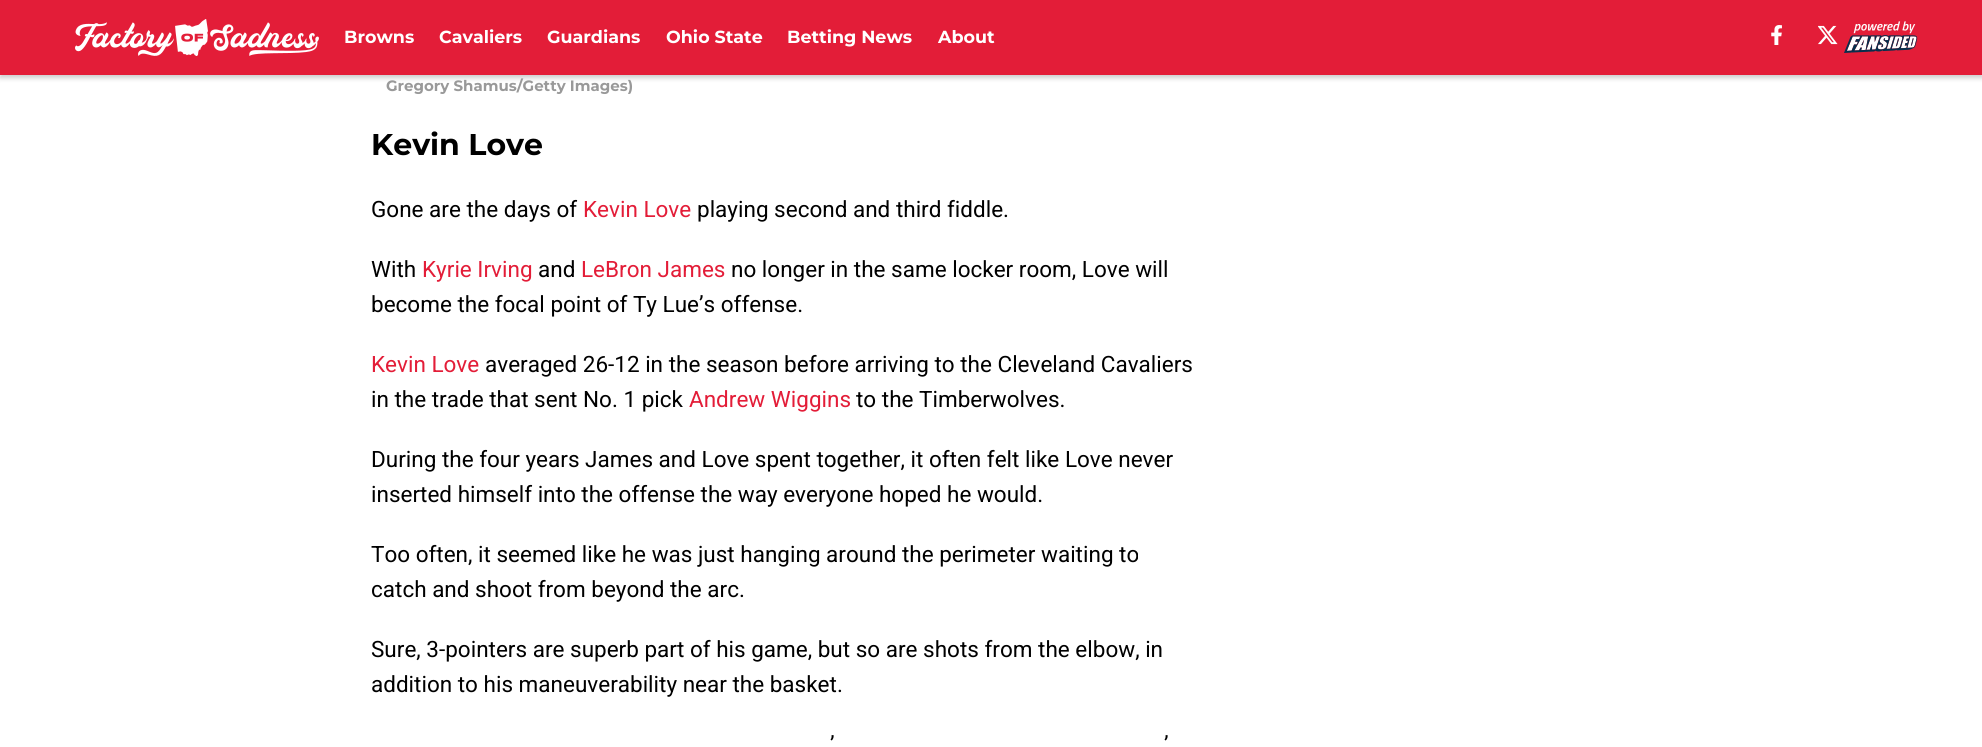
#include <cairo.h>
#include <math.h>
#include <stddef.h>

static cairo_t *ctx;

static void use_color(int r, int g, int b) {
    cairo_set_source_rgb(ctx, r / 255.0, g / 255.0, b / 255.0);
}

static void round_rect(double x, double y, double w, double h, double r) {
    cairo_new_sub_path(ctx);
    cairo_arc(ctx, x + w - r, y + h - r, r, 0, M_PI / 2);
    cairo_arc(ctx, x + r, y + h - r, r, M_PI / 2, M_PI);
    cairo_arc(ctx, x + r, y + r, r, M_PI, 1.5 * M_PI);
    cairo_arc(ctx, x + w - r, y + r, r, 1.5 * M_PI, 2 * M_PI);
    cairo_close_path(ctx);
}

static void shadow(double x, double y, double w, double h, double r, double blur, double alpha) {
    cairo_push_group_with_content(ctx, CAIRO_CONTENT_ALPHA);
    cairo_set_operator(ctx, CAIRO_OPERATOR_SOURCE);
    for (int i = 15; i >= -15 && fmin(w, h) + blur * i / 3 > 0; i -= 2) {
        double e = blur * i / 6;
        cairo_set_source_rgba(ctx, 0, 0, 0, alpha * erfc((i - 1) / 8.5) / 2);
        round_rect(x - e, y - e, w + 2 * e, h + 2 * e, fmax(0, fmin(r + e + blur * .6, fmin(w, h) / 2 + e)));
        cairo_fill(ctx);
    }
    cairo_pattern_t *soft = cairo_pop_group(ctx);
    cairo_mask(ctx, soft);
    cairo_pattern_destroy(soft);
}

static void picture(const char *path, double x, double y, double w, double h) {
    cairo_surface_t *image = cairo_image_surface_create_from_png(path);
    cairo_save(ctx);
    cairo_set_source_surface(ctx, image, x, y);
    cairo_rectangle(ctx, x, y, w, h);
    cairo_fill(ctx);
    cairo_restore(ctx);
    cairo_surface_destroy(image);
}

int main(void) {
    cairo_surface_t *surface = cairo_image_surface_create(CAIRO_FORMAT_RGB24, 1982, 747);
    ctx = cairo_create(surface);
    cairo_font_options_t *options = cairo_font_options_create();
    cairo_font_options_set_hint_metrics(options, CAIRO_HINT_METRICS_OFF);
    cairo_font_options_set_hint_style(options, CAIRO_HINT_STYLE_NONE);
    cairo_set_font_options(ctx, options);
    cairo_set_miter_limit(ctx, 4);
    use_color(255, 255, 255);
    cairo_paint(ctx);
    use_color(0, 0, 0);
    shadow(0, 3, 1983, 75, 0, 2.5, 0.2);
    use_color(227, 29, 56);
    cairo_rectangle(ctx, 0, 0, 1982, 75);
    cairo_fill(ctx);
    picture("img1.png", 75, 19, 244, 37);
    cairo_select_font_face(ctx, "Montserrat Thin", CAIRO_FONT_SLANT_NORMAL, CAIRO_FONT_WEIGHT_NORMAL);
    cairo_set_font_size(ctx, 17.5);
    use_color(255, 255, 255);
    cairo_move_to(ctx, 344, 43);
    cairo_show_text(ctx, "Browns");
    cairo_move_to(ctx, 439, 43);
    cairo_show_text(ctx, "Cavaliers");
    cairo_move_to(ctx, 547, 43);
    cairo_show_text(ctx, "Guardians");
    cairo_move_to(ctx, 666, 43);
    cairo_show_text(ctx, "Ohio State");
    cairo_move_to(ctx, 787, 43);
    cairo_show_text(ctx, "Betting News");
    cairo_move_to(ctx, 938, 43);
    cairo_show_text(ctx, "About");
    picture("img2.png", 1771, 25, 11, 20);
    picture("img3.png", 1818, 25, 20, 20);
    picture("img4.png", 1844, 21, 74, 32);
    cairo_set_font_size(ctx, 15);
    use_color(153, 153, 153);
    cairo_move_to(ctx, 386, 91);
    cairo_show_text(ctx, "Gregory Shamus/Getty Images)");
    cairo_set_font_size(ctx, 30);
    use_color(0, 0, 0);
    cairo_move_to(ctx, 371, 155);
    cairo_show_text(ctx, "Kevin Love");
    cairo_select_font_face(ctx, "Roboto", CAIRO_FONT_SLANT_NORMAL, CAIRO_FONT_WEIGHT_NORMAL);
    cairo_set_font_size(ctx, 22.5);
    cairo_move_to(ctx, 371, 217);
    cairo_show_text(ctx, "Gone are the days of");
    use_color(227, 29, 56);
    cairo_move_to(ctx, 583, 217);
    cairo_show_text(ctx, "Kevin Love");
    use_color(0, 0, 0);
    cairo_move_to(ctx, 697, 217);
    cairo_show_text(ctx, "playing second and third fiddle.");
    cairo_move_to(ctx, 371, 277);
    cairo_show_text(ctx, "With");
    use_color(227, 29, 56);
    cairo_move_to(ctx, 422, 277);
    cairo_show_text(ctx, "Kyrie Irving");
    use_color(0, 0, 0);
    cairo_move_to(ctx, 538, 277);
    cairo_show_text(ctx, "and");
    use_color(227, 29, 56);
    cairo_move_to(ctx, 581, 277);
    cairo_show_text(ctx, "LeBron James");
    use_color(0, 0, 0);
    cairo_move_to(ctx, 731, 277);
    cairo_show_text(ctx, "no longer in the same locker room, Love will");
    cairo_move_to(ctx, 371, 312);
    cairo_show_text(ctx, "become the focal point of Ty Lue’s offense.");
    use_color(227, 29, 56);
    cairo_move_to(ctx, 371, 372);
    cairo_show_text(ctx, "Kevin Love");
    use_color(0, 0, 0);
    cairo_move_to(ctx, 485, 372);
    cairo_show_text(ctx, "averaged 26-12 in the season before arriving to the Cleveland Cavaliers");
    cairo_move_to(ctx, 371, 407);
    cairo_show_text(ctx, "in the trade that sent No. 1 pick");
    use_color(227, 29, 56);
    cairo_move_to(ctx, 689, 407);
    cairo_show_text(ctx, "Andrew Wiggins");
    use_color(0, 0, 0);
    cairo_move_to(ctx, 856, 407);
    cairo_show_text(ctx, "to the Timberwolves.");
    cairo_move_to(ctx, 371, 467);
    cairo_show_text(ctx, "During the four years James and Love spent together, it often felt like Love never");
    cairo_move_to(ctx, 371, 502);
    cairo_show_text(ctx, "inserted himself into the offense the way everyone hoped he would.");
    cairo_move_to(ctx, 371, 562);
    cairo_show_text(ctx, "Too often, it seemed like he was just hanging around the perimeter waiting to");
    cairo_move_to(ctx, 371, 597);
    cairo_show_text(ctx, "catch and shoot from beyond the arc.");
    cairo_move_to(ctx, 371, 657);
    cairo_show_text(ctx, "Sure, 3-pointers are superb part of his game, but so are shots from the elbow, in");
    cairo_move_to(ctx, 371, 692);
    cairo_show_text(ctx, "addition to his maneuverability near the basket.");
    cairo_move_to(ctx, 830, 752);
    cairo_show_text(ctx, "’");
    cairo_move_to(ctx, 1164, 752);
    cairo_show_text(ctx, "’");
    cairo_surface_write_to_png(surface, "result.png");
    cairo_font_options_destroy(options);
    cairo_destroy(ctx);
    cairo_surface_destroy(surface);
    return 0;
}
